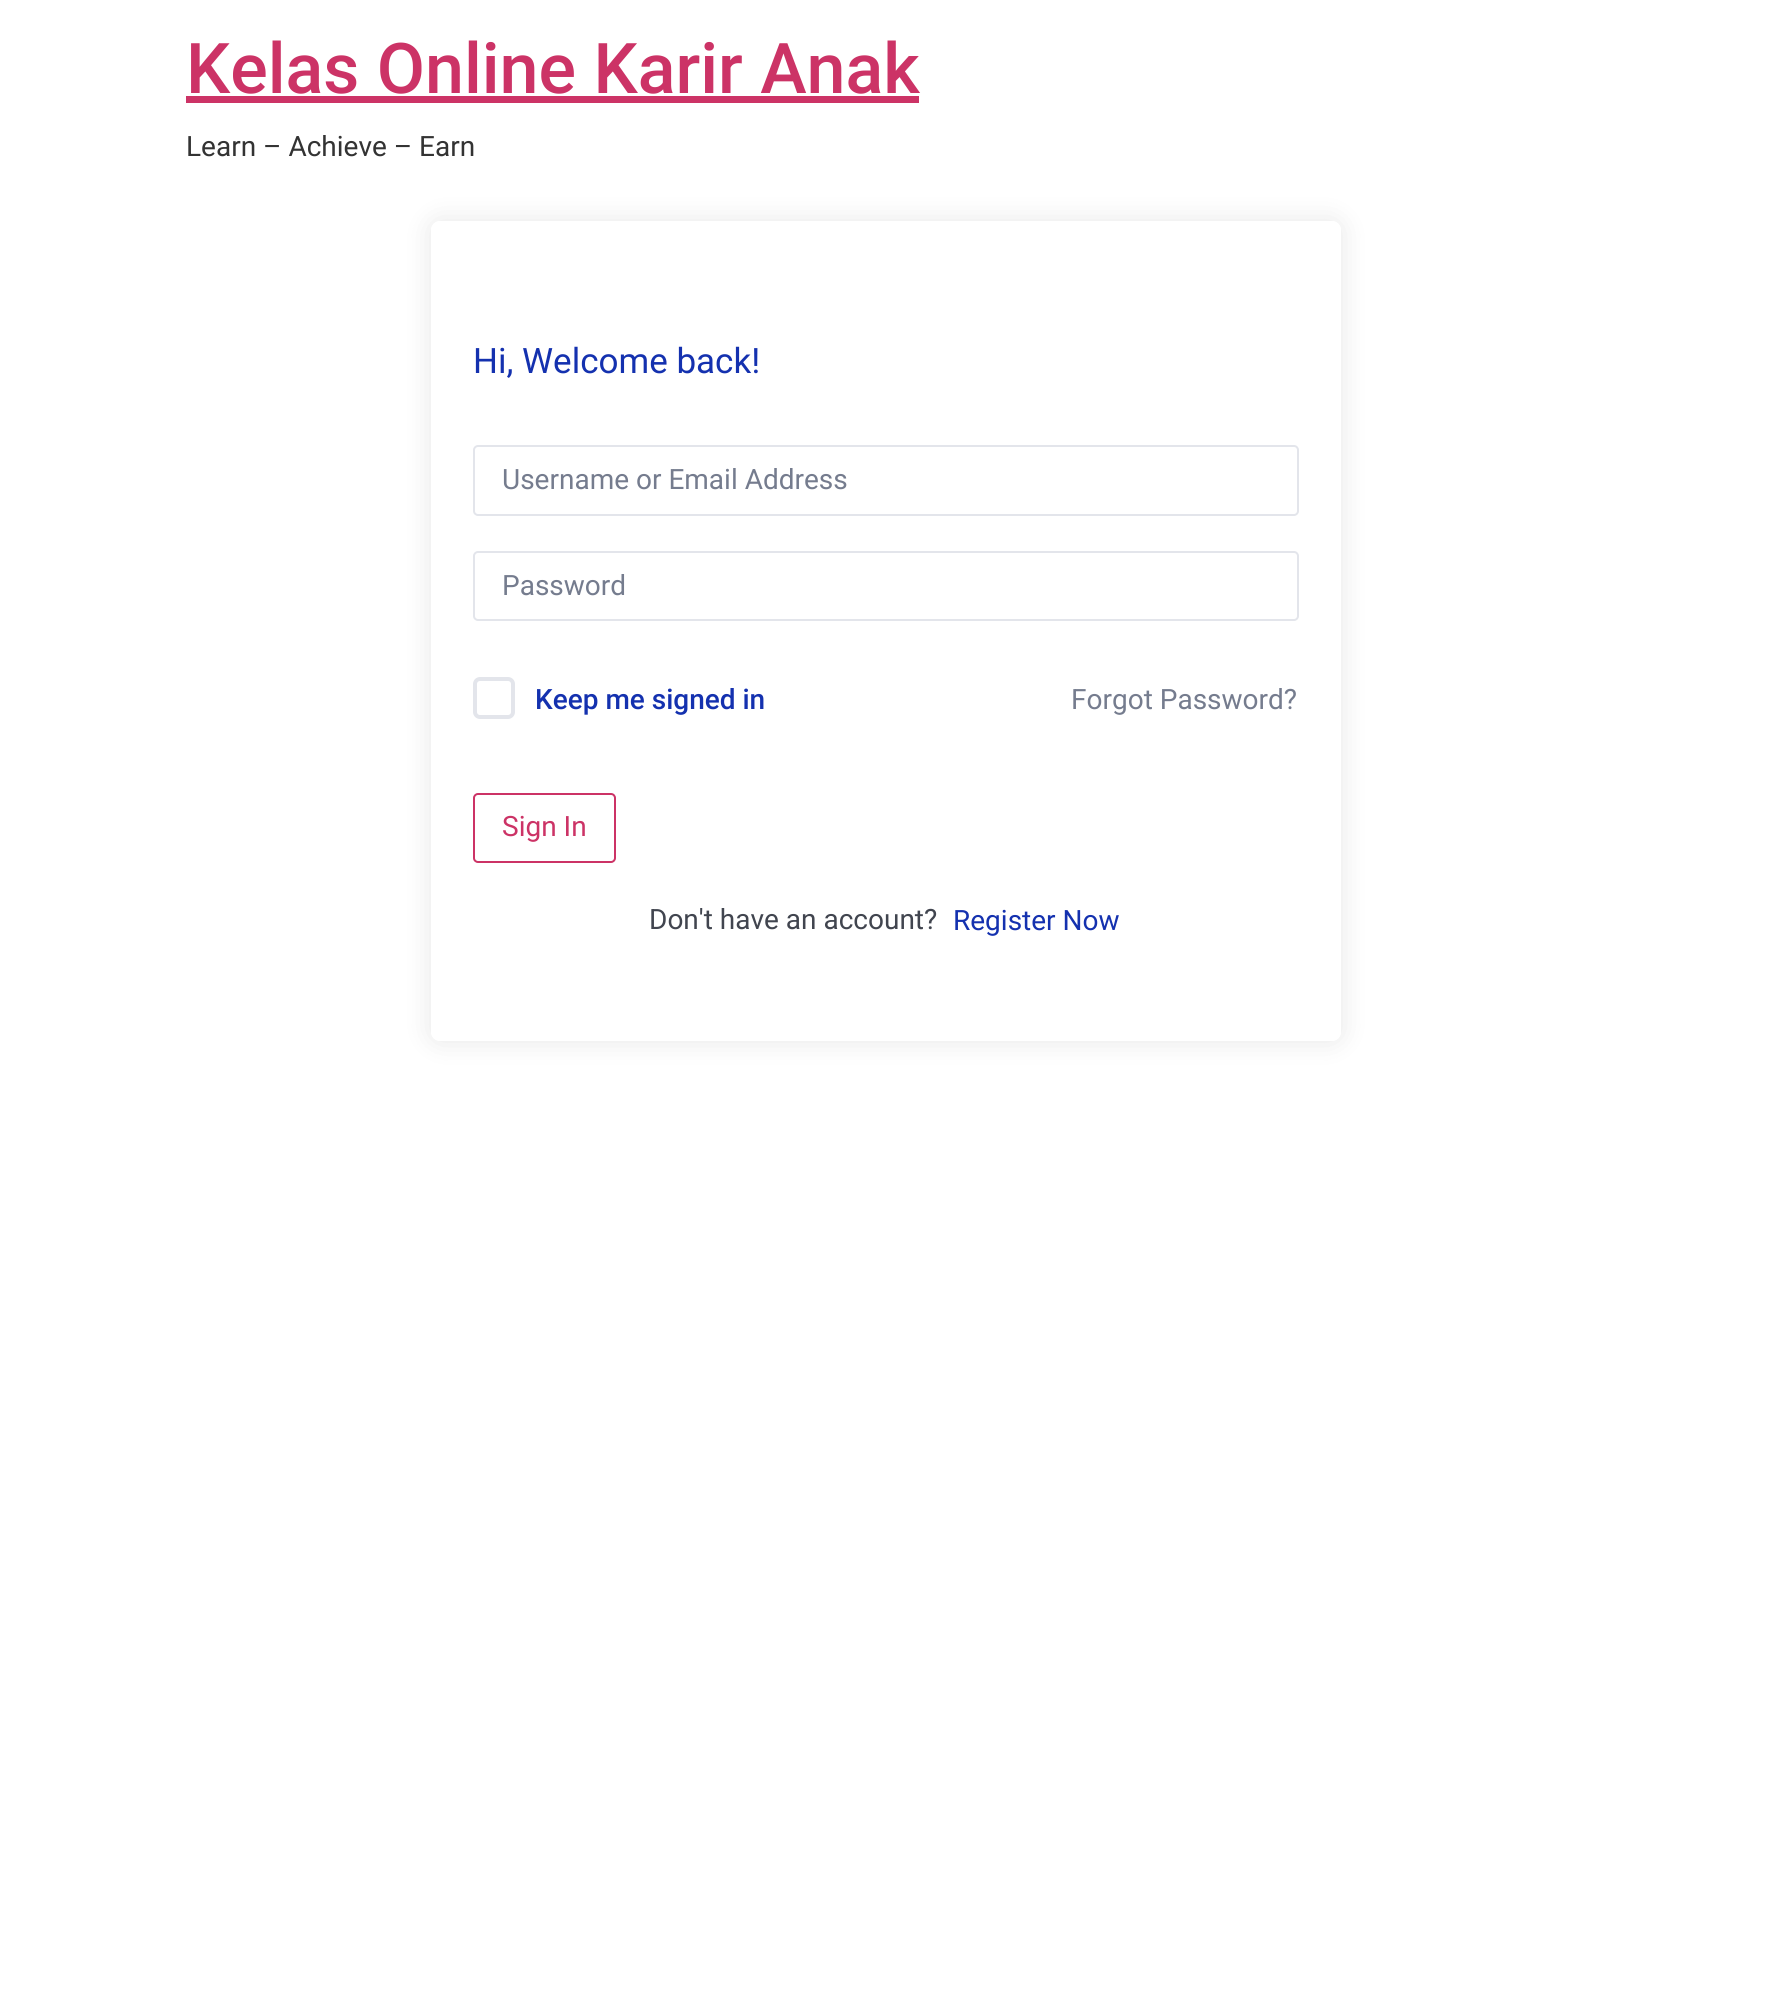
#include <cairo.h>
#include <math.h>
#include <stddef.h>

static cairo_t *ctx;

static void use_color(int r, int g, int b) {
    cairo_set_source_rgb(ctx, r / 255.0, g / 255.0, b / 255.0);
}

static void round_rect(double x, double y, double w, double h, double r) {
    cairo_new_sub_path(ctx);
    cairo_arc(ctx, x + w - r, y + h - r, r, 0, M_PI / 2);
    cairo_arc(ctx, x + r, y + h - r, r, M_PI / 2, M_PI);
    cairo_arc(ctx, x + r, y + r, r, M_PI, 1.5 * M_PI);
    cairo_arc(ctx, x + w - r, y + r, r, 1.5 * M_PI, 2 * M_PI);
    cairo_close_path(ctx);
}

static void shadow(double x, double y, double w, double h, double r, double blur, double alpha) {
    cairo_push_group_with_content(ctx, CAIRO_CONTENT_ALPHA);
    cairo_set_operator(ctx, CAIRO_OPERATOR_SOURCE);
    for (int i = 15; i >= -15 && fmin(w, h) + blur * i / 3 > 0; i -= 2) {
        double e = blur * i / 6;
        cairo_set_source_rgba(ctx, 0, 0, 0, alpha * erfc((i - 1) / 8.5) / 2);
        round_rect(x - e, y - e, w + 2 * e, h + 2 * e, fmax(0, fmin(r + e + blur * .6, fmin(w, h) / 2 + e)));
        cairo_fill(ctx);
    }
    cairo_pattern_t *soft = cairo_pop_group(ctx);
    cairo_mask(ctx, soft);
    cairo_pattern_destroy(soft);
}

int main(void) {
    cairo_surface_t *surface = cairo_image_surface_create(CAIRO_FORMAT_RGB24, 1770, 2012);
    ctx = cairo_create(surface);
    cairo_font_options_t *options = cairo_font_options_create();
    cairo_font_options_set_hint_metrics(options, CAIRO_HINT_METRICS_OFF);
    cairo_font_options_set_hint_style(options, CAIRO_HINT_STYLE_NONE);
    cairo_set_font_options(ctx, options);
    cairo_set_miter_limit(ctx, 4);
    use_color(255, 255, 255);
    cairo_paint(ctx);
    cairo_select_font_face(ctx, "Roboto Medium", CAIRO_FONT_SLANT_NORMAL, CAIRO_FONT_WEIGHT_NORMAL);
    cairo_set_font_size(ctx, 70);
    use_color(204, 51, 102);
    cairo_move_to(ctx, 186, 93);
    cairo_show_text(ctx, "Kelas Online Karir Anak");
    cairo_rectangle(ctx, 186, 96, 733, 7);
    cairo_fill(ctx);
    cairo_select_font_face(ctx, "Roboto", CAIRO_FONT_SLANT_NORMAL, CAIRO_FONT_WEIGHT_NORMAL);
    cairo_set_font_size(ctx, 28);
    use_color(51, 51, 51);
    cairo_move_to(ctx, 186, 156);
    cairo_show_text(ctx, "Learn – Achieve – Earn");
    cairo_save(ctx);
    cairo_set_fill_rule(ctx, CAIRO_FILL_RULE_EVEN_ODD);
    cairo_new_path(ctx);
    cairo_move_to(ctx, 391, 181);
    cairo_line_to(ctx, 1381, 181);
    cairo_line_to(ctx, 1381, 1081);
    cairo_line_to(ctx, 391, 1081);
    cairo_close_path(ctx);
    cairo_move_to(ctx, 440, 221);
    cairo_line_to(ctx, 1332, 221);
    cairo_curve_to(ctx, 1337, 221, 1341, 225, 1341, 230);
    cairo_line_to(ctx, 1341, 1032);
    cairo_curve_to(ctx, 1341, 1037, 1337, 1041, 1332, 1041);
    cairo_line_to(ctx, 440, 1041);
    cairo_curve_to(ctx, 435, 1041, 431, 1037, 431, 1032);
    cairo_line_to(ctx, 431, 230);
    cairo_curve_to(ctx, 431, 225, 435, 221, 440, 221);
    cairo_close_path(ctx);
    cairo_clip(ctx);
    use_color(0, 0, 0);
    shadow(431, 221, 910, 820, 9, 13, 0.1);
    cairo_restore(ctx);
    cairo_set_font_size(ctx, 35);
    use_color(20, 49, 175);
    cairo_move_to(ctx, 473, 373);
    cairo_show_text(ctx, "Hi, Welcome back!");
    round_rect(474, 446, 824, 69, 4);
    use_color(227, 229, 235);
    cairo_stroke(ctx);
    cairo_set_font_size(ctx, 28);
    use_color(117, 124, 142);
    cairo_move_to(ctx, 502, 489);
    cairo_show_text(ctx, "Username or Email Address");
    round_rect(474, 552, 824, 68, 4);
    use_color(227, 229, 235);
    cairo_stroke(ctx);
    use_color(117, 124, 142);
    cairo_move_to(ctx, 502, 595);
    cairo_show_text(ctx, "Password");
    round_rect(475, 679, 38, 38, 5);
    use_color(227, 229, 235);
    cairo_set_line_width(ctx, 4);
    cairo_stroke(ctx);
    cairo_select_font_face(ctx, "Roboto Medium", CAIRO_FONT_SLANT_NORMAL, CAIRO_FONT_WEIGHT_NORMAL);
    use_color(20, 49, 175);
    cairo_move_to(ctx, 535, 709);
    cairo_show_text(ctx, "Keep me signed in");
    cairo_select_font_face(ctx, "Roboto", CAIRO_FONT_SLANT_NORMAL, CAIRO_FONT_WEIGHT_NORMAL);
    use_color(117, 124, 142);
    cairo_move_to(ctx, 1071, 709);
    cairo_show_text(ctx, "Forgot Password?");
    round_rect(474, 794, 141, 68, 4);
    use_color(204, 51, 102);
    cairo_set_line_width(ctx, 2);
    cairo_stroke(ctx);
    cairo_move_to(ctx, 502, 836);
    cairo_show_text(ctx, "Sign In");
    use_color(65, 69, 79);
    cairo_move_to(ctx, 649, 929);
    cairo_show_text(ctx, "Don't have an account?");
    use_color(20, 49, 175);
    cairo_move_to(ctx, 953, 930);
    cairo_show_text(ctx, "Register Now");
    cairo_surface_write_to_png(surface, "result.png");
    cairo_font_options_destroy(options);
    cairo_destroy(ctx);
    cairo_surface_destroy(surface);
    return 0;
}
